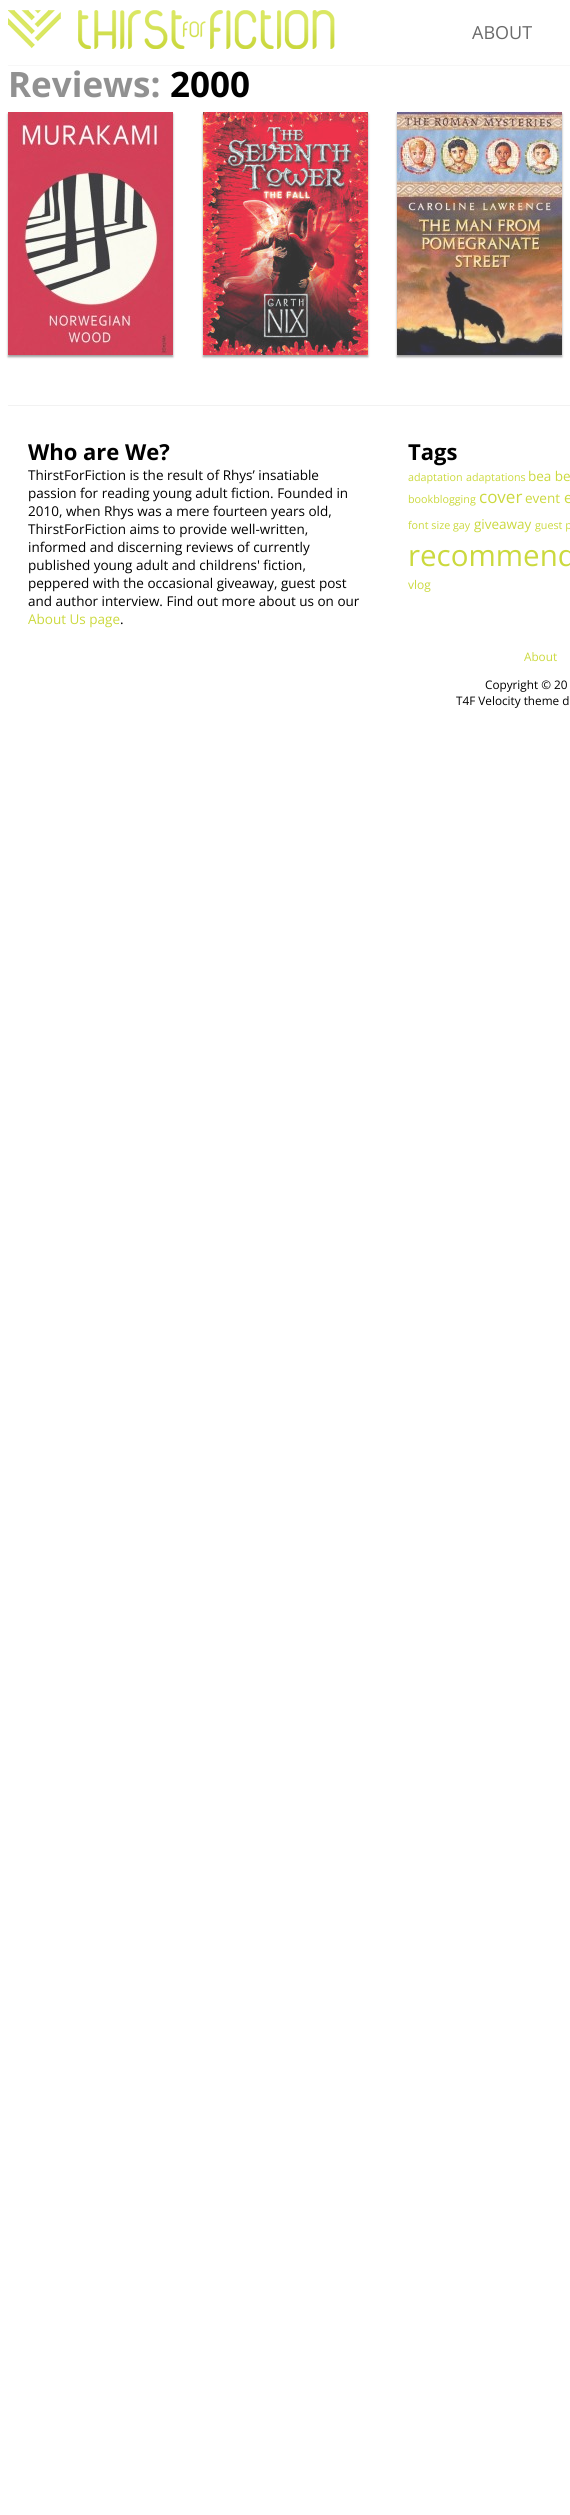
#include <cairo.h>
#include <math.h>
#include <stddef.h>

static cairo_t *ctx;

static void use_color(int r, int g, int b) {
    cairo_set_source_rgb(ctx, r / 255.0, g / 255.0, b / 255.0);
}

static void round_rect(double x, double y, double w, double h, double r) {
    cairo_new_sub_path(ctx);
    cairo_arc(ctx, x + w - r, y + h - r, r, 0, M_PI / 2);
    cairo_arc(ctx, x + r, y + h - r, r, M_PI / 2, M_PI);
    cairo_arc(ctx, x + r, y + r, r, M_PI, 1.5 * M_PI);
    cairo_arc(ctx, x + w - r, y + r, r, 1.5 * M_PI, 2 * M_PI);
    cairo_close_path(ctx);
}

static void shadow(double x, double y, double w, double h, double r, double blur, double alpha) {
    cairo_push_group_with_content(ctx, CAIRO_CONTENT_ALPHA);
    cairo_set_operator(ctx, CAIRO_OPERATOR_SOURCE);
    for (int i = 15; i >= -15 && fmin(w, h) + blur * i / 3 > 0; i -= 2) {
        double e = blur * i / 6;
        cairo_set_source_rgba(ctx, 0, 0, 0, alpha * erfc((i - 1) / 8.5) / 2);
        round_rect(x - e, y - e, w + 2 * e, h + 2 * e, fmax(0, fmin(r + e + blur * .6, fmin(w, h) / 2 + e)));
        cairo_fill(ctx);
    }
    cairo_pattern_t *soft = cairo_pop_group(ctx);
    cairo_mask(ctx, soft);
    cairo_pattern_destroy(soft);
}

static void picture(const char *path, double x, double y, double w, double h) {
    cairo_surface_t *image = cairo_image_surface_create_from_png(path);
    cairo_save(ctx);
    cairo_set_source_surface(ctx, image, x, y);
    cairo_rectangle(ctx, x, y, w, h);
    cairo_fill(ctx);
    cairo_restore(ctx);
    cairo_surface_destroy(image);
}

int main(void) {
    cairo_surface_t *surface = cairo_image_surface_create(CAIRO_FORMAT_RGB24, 570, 2515);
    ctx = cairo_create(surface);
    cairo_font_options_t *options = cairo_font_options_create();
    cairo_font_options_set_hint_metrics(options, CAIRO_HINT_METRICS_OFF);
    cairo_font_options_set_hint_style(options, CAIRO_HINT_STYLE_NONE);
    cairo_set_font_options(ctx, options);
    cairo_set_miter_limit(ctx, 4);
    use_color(255, 255, 255);
    cairo_paint(ctx);
    use_color(247, 247, 247);
    cairo_rectangle(ctx, 8, 65, 562, 1);
    cairo_fill(ctx);
    picture("img1.png", 8, 10, 327, 39);
    cairo_select_font_face(ctx, "Open Sans", CAIRO_FONT_SLANT_NORMAL, CAIRO_FONT_WEIGHT_NORMAL);
    cairo_set_font_size(ctx, 18);
    use_color(106, 106, 106);
    cairo_move_to(ctx, 472, 39);
    cairo_show_text(ctx, "ABOUT");
    cairo_select_font_face(ctx, "Open Sans", CAIRO_FONT_SLANT_NORMAL, CAIRO_FONT_WEIGHT_BOLD);
    cairo_set_font_size(ctx, 35);
    use_color(145, 145, 145);
    cairo_move_to(ctx, 8, 97);
    cairo_show_text(ctx, "Reviews:");
    use_color(0, 0, 0);
    cairo_move_to(ctx, 170, 97);
    cairo_show_text(ctx, "2000");
    cairo_save(ctx);
    cairo_set_fill_rule(ctx, CAIRO_FILL_RULE_EVEN_ODD);
    cairo_new_path(ctx);
    cairo_move_to(ctx, 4, 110);
    cairo_line_to(ctx, 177, 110);
    cairo_line_to(ctx, 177, 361);
    cairo_line_to(ctx, 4, 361);
    cairo_close_path(ctx);
    cairo_move_to(ctx, 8, 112);
    cairo_line_to(ctx, 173, 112);
    cairo_line_to(ctx, 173, 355);
    cairo_line_to(ctx, 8, 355);
    cairo_close_path(ctx);
    cairo_clip(ctx);
    use_color(160, 160, 160);
    shadow(8, 114, 165, 243, 0, 1, 1);
    cairo_restore(ctx);
    cairo_save(ctx);
    cairo_set_fill_rule(ctx, CAIRO_FILL_RULE_EVEN_ODD);
    cairo_new_path(ctx);
    cairo_move_to(ctx, 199, 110);
    cairo_line_to(ctx, 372, 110);
    cairo_line_to(ctx, 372, 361);
    cairo_line_to(ctx, 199, 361);
    cairo_close_path(ctx);
    cairo_move_to(ctx, 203, 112);
    cairo_line_to(ctx, 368, 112);
    cairo_line_to(ctx, 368, 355);
    cairo_line_to(ctx, 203, 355);
    cairo_close_path(ctx);
    cairo_clip(ctx);
    use_color(160, 160, 160);
    shadow(203, 114, 165, 243, 0, 1, 1);
    cairo_restore(ctx);
    cairo_save(ctx);
    cairo_set_fill_rule(ctx, CAIRO_FILL_RULE_EVEN_ODD);
    cairo_new_path(ctx);
    cairo_move_to(ctx, 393, 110);
    cairo_line_to(ctx, 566, 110);
    cairo_line_to(ctx, 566, 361);
    cairo_line_to(ctx, 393, 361);
    cairo_close_path(ctx);
    cairo_move_to(ctx, 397, 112);
    cairo_line_to(ctx, 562, 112);
    cairo_line_to(ctx, 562, 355);
    cairo_line_to(ctx, 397, 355);
    cairo_close_path(ctx);
    cairo_clip(ctx);
    use_color(160, 160, 160);
    shadow(397, 114, 165, 243, 0, 1, 1);
    cairo_restore(ctx);
    picture("img2.png", 8, 112, 165, 243);
    picture("img3.png", 203, 112, 165, 243);
    picture("img4.png", 397, 112, 165, 243);
    use_color(242, 242, 242);
    cairo_rectangle(ctx, 8, 405, 562, 1);
    cairo_fill(ctx);
    cairo_set_font_size(ctx, 22);
    use_color(0, 0, 0);
    cairo_move_to(ctx, 28, 460);
    cairo_show_text(ctx, "Who are We?");
    cairo_select_font_face(ctx, "Open Sans", CAIRO_FONT_SLANT_NORMAL, CAIRO_FONT_WEIGHT_NORMAL);
    cairo_set_font_size(ctx, 13.5);
    cairo_move_to(ctx, 28, 480);
    cairo_show_text(ctx, "ThirstForFiction is the result of Rhys’ insatiable");
    cairo_move_to(ctx, 28, 498);
    cairo_show_text(ctx, "passion for reading young adult fiction. Founded in");
    cairo_move_to(ctx, 28, 516);
    cairo_show_text(ctx, "2010, when Rhys was a mere fourteen years old,");
    cairo_move_to(ctx, 28, 534);
    cairo_show_text(ctx, "ThirstForFiction aims to provide well-written,");
    cairo_move_to(ctx, 28, 552);
    cairo_show_text(ctx, "informed and discerning reviews of currently");
    cairo_move_to(ctx, 28, 570);
    cairo_show_text(ctx, "published young adult and childrens' fiction,");
    cairo_move_to(ctx, 28, 588);
    cairo_show_text(ctx, "peppered with the occasional giveaway, guest post");
    cairo_move_to(ctx, 28, 606);
    cairo_show_text(ctx, "and author interview. Find out more about us on our");
    use_color(203, 217, 62);
    cairo_move_to(ctx, 28, 624);
    cairo_show_text(ctx, "About Us page");
    use_color(0, 0, 0);
    cairo_move_to(ctx, 120, 624);
    cairo_show_text(ctx, ".");
    cairo_select_font_face(ctx, "Open Sans", CAIRO_FONT_SLANT_NORMAL, CAIRO_FONT_WEIGHT_BOLD);
    cairo_set_font_size(ctx, 22);
    cairo_move_to(ctx, 408, 460);
    cairo_show_text(ctx, "Tags");
    cairo_select_font_face(ctx, "Open Sans", CAIRO_FONT_SLANT_NORMAL, CAIRO_FONT_WEIGHT_NORMAL);
    cairo_set_font_size(ctx, 10.75);
    use_color(203, 217, 62);
    cairo_move_to(ctx, 408, 481);
    cairo_show_text(ctx, "adaptation");
    cairo_move_to(ctx, 466, 481);
    cairo_show_text(ctx, "adaptations");
    cairo_set_font_size(ctx, 13.5);
    cairo_move_to(ctx, 528, 481);
    cairo_show_text(ctx, "bea be");
    cairo_set_font_size(ctx, 10.75);
    cairo_move_to(ctx, 408, 503);
    cairo_show_text(ctx, "bookblogging");
    cairo_set_font_size(ctx, 17);
    cairo_move_to(ctx, 479, 503);
    cairo_show_text(ctx, "cover");
    cairo_set_font_size(ctx, 13.5);
    cairo_move_to(ctx, 525, 503);
    cairo_show_text(ctx, "event");
    cairo_set_font_size(ctx, 15);
    cairo_move_to(ctx, 564, 503);
    cairo_show_text(ctx, "e");
    cairo_set_font_size(ctx, 10.75);
    cairo_move_to(ctx, 408, 529);
    cairo_show_text(ctx, "font size");
    cairo_move_to(ctx, 453, 529);
    cairo_show_text(ctx, "gay");
    cairo_set_font_size(ctx, 13.5);
    cairo_move_to(ctx, 474, 529);
    cairo_show_text(ctx, "giveaway");
    cairo_set_font_size(ctx, 10.75);
    cairo_move_to(ctx, 535, 529);
    cairo_show_text(ctx, "guest p");
    cairo_set_font_size(ctx, 29.5);
    cairo_move_to(ctx, 408, 566);
    cairo_show_text(ctx, "recommend");
    cairo_set_font_size(ctx, 12);
    cairo_move_to(ctx, 408, 589);
    cairo_show_text(ctx, "vlog");
    cairo_set_font_size(ctx, 11.75);
    cairo_move_to(ctx, 524, 661);
    cairo_show_text(ctx, "About");
    use_color(0, 0, 0);
    cairo_move_to(ctx, 485, 689);
    cairo_show_text(ctx, "Copyright © 20");
    cairo_move_to(ctx, 456, 705);
    cairo_show_text(ctx, "T4F Velocity theme d");
    cairo_surface_write_to_png(surface, "result.png");
    cairo_font_options_destroy(options);
    cairo_destroy(ctx);
    cairo_surface_destroy(surface);
    return 0;
}
